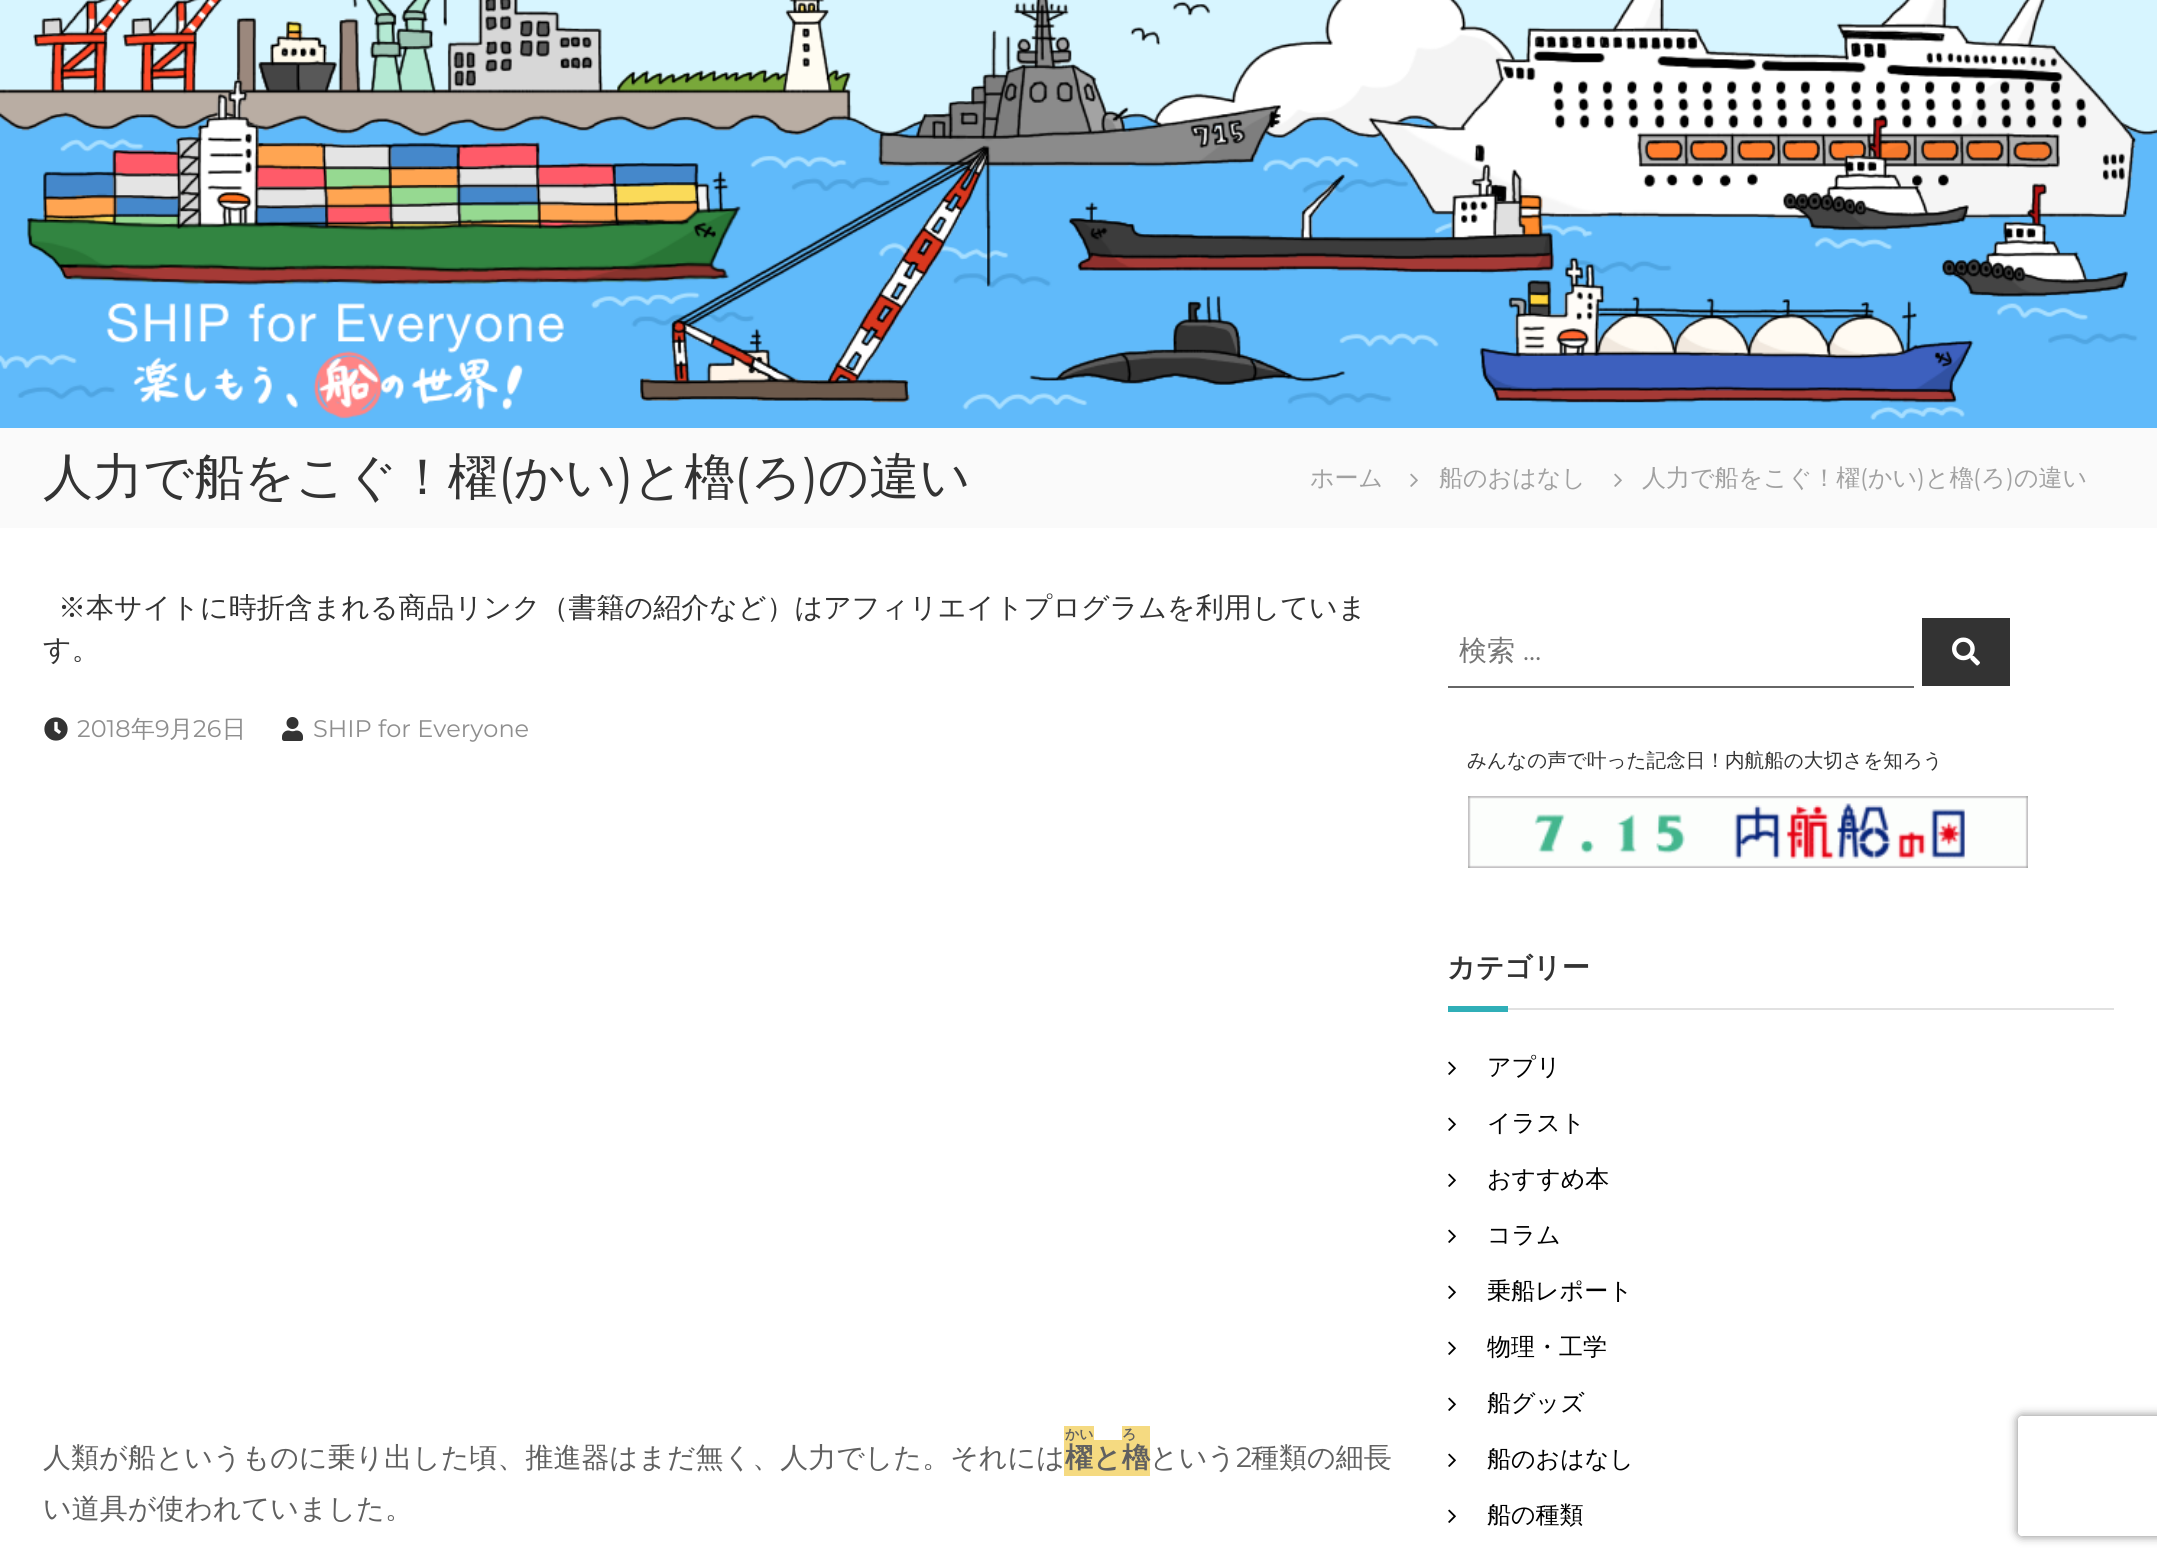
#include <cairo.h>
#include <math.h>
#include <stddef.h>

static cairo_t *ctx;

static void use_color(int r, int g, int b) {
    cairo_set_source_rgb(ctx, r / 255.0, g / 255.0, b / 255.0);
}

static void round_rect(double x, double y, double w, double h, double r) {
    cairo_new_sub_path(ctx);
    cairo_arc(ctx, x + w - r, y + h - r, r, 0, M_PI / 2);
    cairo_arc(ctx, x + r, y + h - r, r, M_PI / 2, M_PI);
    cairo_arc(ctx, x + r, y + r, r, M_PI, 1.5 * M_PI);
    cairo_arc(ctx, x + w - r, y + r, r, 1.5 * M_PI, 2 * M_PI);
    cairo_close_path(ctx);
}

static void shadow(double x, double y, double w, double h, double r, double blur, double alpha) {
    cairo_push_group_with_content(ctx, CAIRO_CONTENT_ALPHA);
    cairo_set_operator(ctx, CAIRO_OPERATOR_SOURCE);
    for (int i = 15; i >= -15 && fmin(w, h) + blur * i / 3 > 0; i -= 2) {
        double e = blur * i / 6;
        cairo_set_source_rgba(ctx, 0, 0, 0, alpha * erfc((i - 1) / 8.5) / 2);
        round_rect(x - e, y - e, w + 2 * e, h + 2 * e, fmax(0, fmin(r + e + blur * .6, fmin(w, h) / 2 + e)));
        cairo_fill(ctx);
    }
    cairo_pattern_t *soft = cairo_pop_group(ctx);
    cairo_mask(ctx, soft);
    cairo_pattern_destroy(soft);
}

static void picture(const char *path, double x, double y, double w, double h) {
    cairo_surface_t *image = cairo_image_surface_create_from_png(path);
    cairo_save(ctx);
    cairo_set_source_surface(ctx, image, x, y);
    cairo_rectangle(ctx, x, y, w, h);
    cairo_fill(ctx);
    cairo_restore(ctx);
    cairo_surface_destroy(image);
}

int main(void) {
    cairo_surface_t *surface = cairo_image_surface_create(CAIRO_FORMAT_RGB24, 2157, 1563);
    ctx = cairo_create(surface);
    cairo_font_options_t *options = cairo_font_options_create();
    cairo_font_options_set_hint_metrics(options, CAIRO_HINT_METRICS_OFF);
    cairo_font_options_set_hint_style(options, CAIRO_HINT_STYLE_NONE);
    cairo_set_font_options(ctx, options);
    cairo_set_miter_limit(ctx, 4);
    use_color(255, 255, 255);
    cairo_paint(ctx);
    picture("img1.png", 0, 0, 2157, 428);
    use_color(250, 250, 250);
    cairo_rectangle(ctx, 0, 428, 2157, 100);
    cairo_fill(ctx);
    cairo_select_font_face(ctx, "WenQuanYi Zen Hei Medium", CAIRO_FONT_SLANT_NORMAL, CAIRO_FONT_WEIGHT_NORMAL);
    cairo_set_font_size(ctx, 50);
    use_color(51, 51, 51);
    cairo_move_to(ctx, 43, 494);
    cairo_show_text(ctx, "人力で船をこぐ！櫂");
    cairo_select_font_face(ctx, "Montserrat Thin", CAIRO_FONT_SLANT_NORMAL, CAIRO_FONT_WEIGHT_NORMAL);
    cairo_move_to(ctx, 498, 494);
    cairo_show_text(ctx, "(");
    cairo_select_font_face(ctx, "WenQuanYi Zen Hei Medium", CAIRO_FONT_SLANT_NORMAL, CAIRO_FONT_WEIGHT_NORMAL);
    cairo_move_to(ctx, 514, 494);
    cairo_show_text(ctx, "かい");
    cairo_select_font_face(ctx, "Montserrat Thin", CAIRO_FONT_SLANT_NORMAL, CAIRO_FONT_WEIGHT_NORMAL);
    cairo_move_to(ctx, 617, 494);
    cairo_show_text(ctx, ")");
    cairo_select_font_face(ctx, "WenQuanYi Zen Hei Medium", CAIRO_FONT_SLANT_NORMAL, CAIRO_FONT_WEIGHT_NORMAL);
    cairo_move_to(ctx, 633, 494);
    cairo_show_text(ctx, "と櫓");
    cairo_select_font_face(ctx, "Montserrat Thin", CAIRO_FONT_SLANT_NORMAL, CAIRO_FONT_WEIGHT_NORMAL);
    cairo_move_to(ctx, 734, 494);
    cairo_show_text(ctx, "(");
    cairo_select_font_face(ctx, "WenQuanYi Zen Hei Medium", CAIRO_FONT_SLANT_NORMAL, CAIRO_FONT_WEIGHT_NORMAL);
    cairo_move_to(ctx, 751, 494);
    cairo_show_text(ctx, "ろ");
    cairo_select_font_face(ctx, "Montserrat Thin", CAIRO_FONT_SLANT_NORMAL, CAIRO_FONT_WEIGHT_NORMAL);
    cairo_move_to(ctx, 802, 494);
    cairo_show_text(ctx, ")");
    cairo_select_font_face(ctx, "WenQuanYi Zen Hei Medium", CAIRO_FONT_SLANT_NORMAL, CAIRO_FONT_WEIGHT_NORMAL);
    cairo_move_to(ctx, 818, 494);
    cairo_show_text(ctx, "の違い");
    cairo_set_font_size(ctx, 24);
    use_color(161, 161, 161);
    cairo_move_to(ctx, 1310, 486);
    cairo_show_text(ctx, "ホーム");
    picture("img2.png", 1410, 473, 8, 14);
    cairo_move_to(ctx, 1439, 486);
    cairo_show_text(ctx, "船のおはなし");
    picture("img2.png", 1614, 473, 8, 14);
    cairo_move_to(ctx, 1642, 486);
    cairo_show_text(ctx, "人力で船をこぐ！櫂");
    cairo_select_font_face(ctx, "Montserrat Thin", CAIRO_FONT_SLANT_NORMAL, CAIRO_FONT_WEIGHT_NORMAL);
    cairo_move_to(ctx, 1860, 486);
    cairo_show_text(ctx, "(");
    cairo_select_font_face(ctx, "WenQuanYi Zen Hei Medium", CAIRO_FONT_SLANT_NORMAL, CAIRO_FONT_WEIGHT_NORMAL);
    cairo_move_to(ctx, 1868, 486);
    cairo_show_text(ctx, "かい");
    cairo_select_font_face(ctx, "Montserrat Thin", CAIRO_FONT_SLANT_NORMAL, CAIRO_FONT_WEIGHT_NORMAL);
    cairo_move_to(ctx, 1917, 486);
    cairo_show_text(ctx, ")");
    cairo_select_font_face(ctx, "WenQuanYi Zen Hei Medium", CAIRO_FONT_SLANT_NORMAL, CAIRO_FONT_WEIGHT_NORMAL);
    cairo_move_to(ctx, 1925, 486);
    cairo_show_text(ctx, "と櫓");
    cairo_select_font_face(ctx, "Montserrat Thin", CAIRO_FONT_SLANT_NORMAL, CAIRO_FONT_WEIGHT_NORMAL);
    cairo_move_to(ctx, 1973, 486);
    cairo_show_text(ctx, "(");
    cairo_select_font_face(ctx, "WenQuanYi Zen Hei Medium", CAIRO_FONT_SLANT_NORMAL, CAIRO_FONT_WEIGHT_NORMAL);
    cairo_move_to(ctx, 1981, 486);
    cairo_show_text(ctx, "ろ");
    cairo_select_font_face(ctx, "Montserrat Thin", CAIRO_FONT_SLANT_NORMAL, CAIRO_FONT_WEIGHT_NORMAL);
    cairo_move_to(ctx, 2006, 486);
    cairo_show_text(ctx, ")");
    cairo_select_font_face(ctx, "WenQuanYi Zen Hei Medium", CAIRO_FONT_SLANT_NORMAL, CAIRO_FONT_WEIGHT_NORMAL);
    cairo_move_to(ctx, 2014, 486);
    cairo_show_text(ctx, "の違い");
    cairo_set_font_size(ctx, 28);
    use_color(51, 51, 51);
    cairo_move_to(ctx, 58, 617);
    cairo_show_text(ctx, "※本サイトに時折含まれる商品リンク（書籍の紹介など）はアフィリエイトプログラムを利用していま");
    cairo_move_to(ctx, 43, 659);
    cairo_show_text(ctx, "す。");
    picture("img3.png", 44, 717, 24, 24);
    cairo_select_font_face(ctx, "Montserrat Thin", CAIRO_FONT_SLANT_NORMAL, CAIRO_FONT_WEIGHT_NORMAL);
    cairo_set_font_size(ctx, 24);
    use_color(142, 142, 142);
    cairo_move_to(ctx, 77, 737);
    cairo_show_text(ctx, "2018");
    cairo_select_font_face(ctx, "WenQuanYi Zen Hei Medium", CAIRO_FONT_SLANT_NORMAL, CAIRO_FONT_WEIGHT_NORMAL);
    cairo_move_to(ctx, 131, 737);
    cairo_show_text(ctx, "年");
    cairo_select_font_face(ctx, "Montserrat Thin", CAIRO_FONT_SLANT_NORMAL, CAIRO_FONT_WEIGHT_NORMAL);
    cairo_move_to(ctx, 155, 737);
    cairo_show_text(ctx, "9");
    cairo_select_font_face(ctx, "WenQuanYi Zen Hei Medium", CAIRO_FONT_SLANT_NORMAL, CAIRO_FONT_WEIGHT_NORMAL);
    cairo_move_to(ctx, 169, 737);
    cairo_show_text(ctx, "月");
    cairo_select_font_face(ctx, "Montserrat Thin", CAIRO_FONT_SLANT_NORMAL, CAIRO_FONT_WEIGHT_NORMAL);
    cairo_move_to(ctx, 193, 737);
    cairo_show_text(ctx, "26");
    cairo_select_font_face(ctx, "WenQuanYi Zen Hei Medium", CAIRO_FONT_SLANT_NORMAL, CAIRO_FONT_WEIGHT_NORMAL);
    cairo_move_to(ctx, 222, 737);
    cairo_show_text(ctx, "日");
    picture("img4.png", 282, 717, 21, 24);
    cairo_select_font_face(ctx, "Montserrat Thin", CAIRO_FONT_SLANT_NORMAL, CAIRO_FONT_WEIGHT_NORMAL);
    cairo_move_to(ctx, 313, 737);
    cairo_show_text(ctx, "SHIP for Everyone");
    cairo_select_font_face(ctx, "WenQuanYi Zen Hei Medium", CAIRO_FONT_SLANT_NORMAL, CAIRO_FONT_WEIGHT_NORMAL);
    cairo_set_font_size(ctx, 28);
    use_color(96, 96, 96);
    cairo_move_to(ctx, 43, 1467);
    cairo_show_text(ctx, "人類が船というものに乗り出した頃、推進器はまだ無く、人力でした。それには");
    use_color(245, 218, 129);
    cairo_rectangle(ctx, 1064, 1444, 28, 32);
    cairo_fill(ctx);
    cairo_rectangle(ctx, 1064, 1426, 30, 18);
    cairo_fill(ctx);
    cairo_rectangle(ctx, 1092, 1440, 30, 36);
    cairo_fill(ctx);
    cairo_rectangle(ctx, 1122, 1426, 28, 50);
    cairo_fill(ctx);
    cairo_select_font_face(ctx, "WenQuanYi Zen Hei", CAIRO_FONT_SLANT_NORMAL, CAIRO_FONT_WEIGHT_BOLD);
    cairo_set_font_size(ctx, 14);
    use_color(96, 96, 96);
    cairo_move_to(ctx, 1065, 1439);
    cairo_show_text(ctx, "かい");
    cairo_set_font_size(ctx, 28);
    cairo_move_to(ctx, 1065, 1467);
    cairo_show_text(ctx, "櫂");
    cairo_set_font_size(ctx, 14);
    cairo_move_to(ctx, 1122, 1439);
    cairo_show_text(ctx, "ろ");
    cairo_set_font_size(ctx, 28);
    cairo_move_to(ctx, 1093, 1467);
    cairo_show_text(ctx, "と櫓");
    cairo_select_font_face(ctx, "WenQuanYi Zen Hei Medium", CAIRO_FONT_SLANT_NORMAL, CAIRO_FONT_WEIGHT_NORMAL);
    cairo_move_to(ctx, 1150, 1467);
    cairo_show_text(ctx, "という");
    cairo_select_font_face(ctx, "Montserrat Thin", CAIRO_FONT_SLANT_NORMAL, CAIRO_FONT_WEIGHT_NORMAL);
    cairo_move_to(ctx, 1236, 1467);
    cairo_show_text(ctx, "2");
    cairo_select_font_face(ctx, "WenQuanYi Zen Hei Medium", CAIRO_FONT_SLANT_NORMAL, CAIRO_FONT_WEIGHT_NORMAL);
    cairo_move_to(ctx, 1251, 1467);
    cairo_show_text(ctx, "種類の細長");
    cairo_move_to(ctx, 43, 1518);
    cairo_show_text(ctx, "い道具が使われていました。");
    use_color(102, 102, 102);
    cairo_rectangle(ctx, 1448, 686, 466, 2);
    cairo_fill(ctx);
    use_color(117, 117, 117);
    cairo_move_to(ctx, 1459, 660);
    cairo_show_text(ctx, "検索");
    cairo_select_font_face(ctx, "Montserrat Thin", CAIRO_FONT_SLANT_NORMAL, CAIRO_FONT_WEIGHT_NORMAL);
    cairo_move_to(ctx, 1523, 660);
    cairo_show_text(ctx, "…");
    use_color(51, 51, 51);
    cairo_rectangle(ctx, 1922, 618, 88, 68);
    cairo_fill(ctx);
    picture("img5.png", 1952, 637, 28, 29);
    cairo_select_font_face(ctx, "WenQuanYi Zen Hei Medium", CAIRO_FONT_SLANT_NORMAL, CAIRO_FONT_WEIGHT_NORMAL);
    cairo_set_font_size(ctx, 19.6);
    cairo_move_to(ctx, 1467, 767);
    cairo_show_text(ctx, "みんなの声で叶った記念日！内航船の大切さを知ろう");
    picture("img6.png", 1468, 796, 560, 72);
    cairo_select_font_face(ctx, "WenQuanYi Zen Hei", CAIRO_FONT_SLANT_NORMAL, CAIRO_FONT_WEIGHT_BOLD);
    cairo_set_font_size(ctx, 28);
    cairo_move_to(ctx, 1447, 977);
    cairo_show_text(ctx, "カテゴリー");
    use_color(48, 175, 184);
    cairo_rectangle(ctx, 1448, 1006, 60, 6);
    cairo_fill(ctx);
    use_color(225, 225, 225);
    cairo_rectangle(ctx, 1508, 1008, 606, 2);
    cairo_fill(ctx);
    picture("img7.png", 1448, 1061, 8, 14);
    cairo_select_font_face(ctx, "WenQuanYi Zen Hei Medium", CAIRO_FONT_SLANT_NORMAL, CAIRO_FONT_WEIGHT_NORMAL);
    cairo_set_font_size(ctx, 24);
    use_color(0, 0, 0);
    cairo_move_to(ctx, 1487, 1075);
    cairo_show_text(ctx, "アプリ");
    picture("img7.png", 1448, 1117, 8, 14);
    cairo_move_to(ctx, 1487, 1131);
    cairo_show_text(ctx, "イラスト");
    picture("img7.png", 1448, 1173, 8, 14);
    cairo_move_to(ctx, 1487, 1187);
    cairo_show_text(ctx, "おすすめ本");
    picture("img7.png", 1448, 1229, 8, 14);
    cairo_move_to(ctx, 1487, 1243);
    cairo_show_text(ctx, "コラム");
    picture("img7.png", 1448, 1285, 8, 14);
    cairo_move_to(ctx, 1487, 1299);
    cairo_show_text(ctx, "乗船レポート");
    picture("img7.png", 1448, 1341, 8, 14);
    cairo_move_to(ctx, 1487, 1355);
    cairo_show_text(ctx, "物理・工学");
    picture("img7.png", 1448, 1397, 8, 14);
    cairo_move_to(ctx, 1487, 1411);
    cairo_show_text(ctx, "船グッズ");
    picture("img7.png", 1448, 1453, 8, 14);
    cairo_move_to(ctx, 1487, 1467);
    cairo_show_text(ctx, "船のおはなし");
    picture("img7.png", 1448, 1509, 8, 14);
    cairo_move_to(ctx, 1487, 1523);
    cairo_show_text(ctx, "船の種類");
    cairo_save(ctx);
    cairo_set_fill_rule(ctx, CAIRO_FILL_RULE_EVEN_ODD);
    cairo_new_path(ctx);
    cairo_move_to(ctx, 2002, 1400);
    cairo_line_to(ctx, 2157, 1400);
    cairo_line_to(ctx, 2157, 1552);
    cairo_line_to(ctx, 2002, 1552);
    cairo_close_path(ctx);
    cairo_move_to(ctx, 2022, 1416);
    cairo_line_to(ctx, 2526, 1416);
    cairo_curve_to(ctx, 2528, 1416, 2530, 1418, 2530, 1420);
    cairo_line_to(ctx, 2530, 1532);
    cairo_curve_to(ctx, 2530, 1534, 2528, 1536, 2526, 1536);
    cairo_line_to(ctx, 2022, 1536);
    cairo_curve_to(ctx, 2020, 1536, 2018, 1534, 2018, 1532);
    cairo_line_to(ctx, 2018, 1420);
    cairo_curve_to(ctx, 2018, 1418, 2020, 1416, 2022, 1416);
    cairo_close_path(ctx);
    cairo_clip(ctx);
    use_color(128, 128, 128);
    shadow(2018, 1416, 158, 120, 4, 5, 1);
    cairo_restore(ctx);
    cairo_surface_write_to_png(surface, "result.png");
    cairo_font_options_destroy(options);
    cairo_destroy(ctx);
    cairo_surface_destroy(surface);
    return 0;
}
